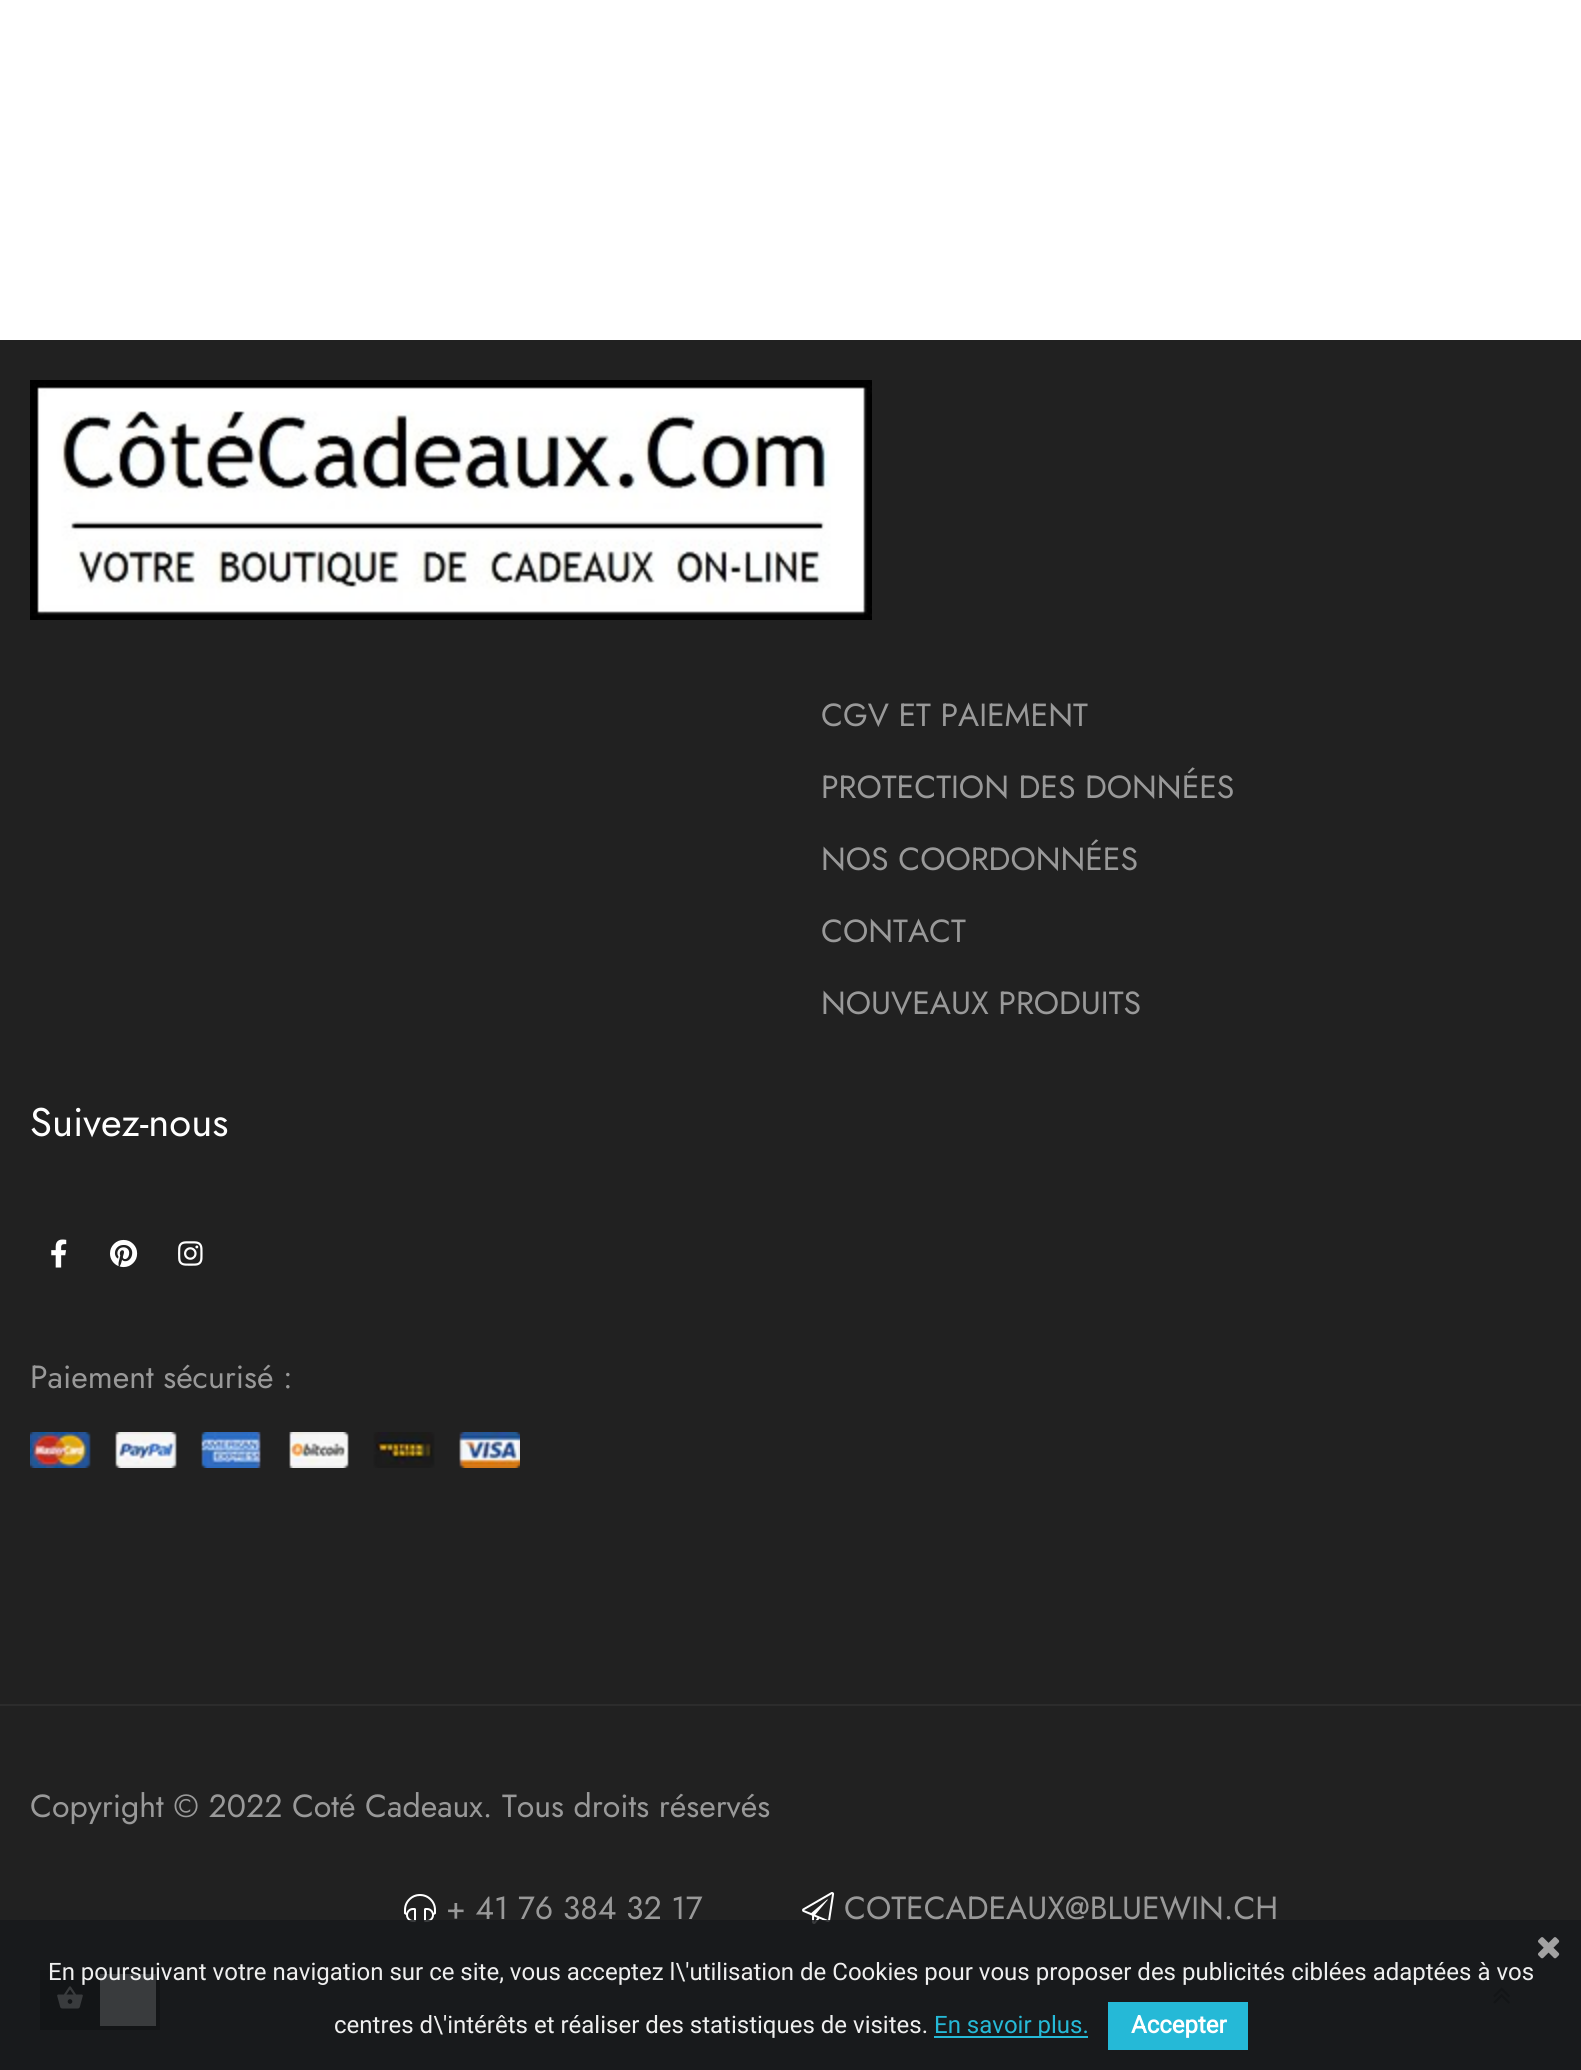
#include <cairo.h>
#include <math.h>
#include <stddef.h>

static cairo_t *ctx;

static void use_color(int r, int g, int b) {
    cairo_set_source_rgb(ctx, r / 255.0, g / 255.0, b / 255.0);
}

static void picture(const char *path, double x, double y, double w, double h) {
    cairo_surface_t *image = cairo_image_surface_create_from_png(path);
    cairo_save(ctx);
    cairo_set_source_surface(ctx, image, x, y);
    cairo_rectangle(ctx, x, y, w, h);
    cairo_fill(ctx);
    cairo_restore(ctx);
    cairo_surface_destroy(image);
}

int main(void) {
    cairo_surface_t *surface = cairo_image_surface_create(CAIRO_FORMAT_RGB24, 1581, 2070);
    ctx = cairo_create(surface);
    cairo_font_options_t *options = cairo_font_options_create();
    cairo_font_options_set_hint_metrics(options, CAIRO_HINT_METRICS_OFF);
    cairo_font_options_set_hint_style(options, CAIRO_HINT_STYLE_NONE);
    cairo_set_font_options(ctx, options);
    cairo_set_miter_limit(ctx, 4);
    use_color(255, 255, 255);
    cairo_paint(ctx);
    use_color(33, 33, 33);
    cairo_rectangle(ctx, 0, 340, 1581, 1730);
    cairo_fill(ctx);
    picture("img1.png", 30, 380, 842, 240);
    cairo_select_font_face(ctx, "Jost", CAIRO_FONT_SLANT_NORMAL, CAIRO_FONT_WEIGHT_NORMAL);
    cairo_set_font_size(ctx, 32);
    use_color(153, 153, 153);
    cairo_move_to(ctx, 821, 726);
    cairo_show_text(ctx, "CGV ET PAIEMENT");
    cairo_move_to(ctx, 821, 798);
    cairo_show_text(ctx, "PROTECTION DES DONNÉES");
    cairo_move_to(ctx, 821, 870);
    cairo_show_text(ctx, "NOS COORDONNÉES");
    cairo_move_to(ctx, 821, 942);
    cairo_show_text(ctx, "CONTACT");
    cairo_move_to(ctx, 821, 1014);
    cairo_show_text(ctx, "NOUVEAUX PRODUITS");
    cairo_set_font_size(ctx, 40);
    use_color(255, 255, 255);
    cairo_move_to(ctx, 30, 1136);
    cairo_show_text(ctx, "Suivez-nous");
    picture("img2.png", 51, 1239, 16, 29);
    picture("img3.png", 110, 1239, 28, 29);
    picture("img4.png", 178, 1241, 25, 25);
    cairo_set_font_size(ctx, 32);
    use_color(153, 153, 153);
    cairo_move_to(ctx, 30, 1388);
    cairo_show_text(ctx, "Paiement sécurisé :");
    picture("img5.png", 30, 1432, 490, 36);
    use_color(44, 44, 44);
    cairo_rectangle(ctx, 0, 1704, 1581, 2);
    cairo_fill(ctx);
    use_color(153, 153, 153);
    cairo_move_to(ctx, 30, 1817);
    cairo_show_text(ctx, "Copyright © 2022 Coté Cadeaux. Tous droits réservés");
    picture("img6.png", 404, 1894, 32, 28);
    cairo_move_to(ctx, 446, 1919);
    cairo_show_text(ctx, "+ 41 76 384 32 17");
    picture("img7.png", 802, 1892, 33, 32);
    cairo_move_to(ctx, 844, 1919);
    cairo_show_text(ctx, "COTECADEAUX@BLUEWIN.CH");
    picture("img8.png", 1493, 1987, 17, 17);
    use_color(0, 0, 0);
    cairo_rectangle(ctx, 40, 1970, 120, 60);
    cairo_fill(ctx);
    picture("img10.png", 57, 1986, 26, 23);
    use_color(255, 255, 255);
    cairo_rectangle(ctx, 100, 1974, 56, 52);
    cairo_fill(ctx);
    cairo_set_source_rgba(ctx, 0.09, 0.098, 0.11, 0.85);
    cairo_rectangle(ctx, 0, 1920, 1581, 150);
    cairo_fill(ctx);
    picture("img9.png", 1538, 1937, 22, 22);
    cairo_select_font_face(ctx, "Roboto", CAIRO_FONT_SLANT_NORMAL, CAIRO_FONT_WEIGHT_NORMAL);
    cairo_set_font_size(ctx, 24);
    use_color(239, 239, 239);
    cairo_move_to(ctx, 48, 1980);
    cairo_show_text(ctx, "En poursuivant votre navigation sur ce site, vous acceptez l\\'utilisation de Cookies pour vous proposer des publicités ciblées adaptées à vos");
    cairo_move_to(ctx, 334, 2033);
    cairo_show_text(ctx, "centres d\\'intérêts et réaliser des statistiques de visites.");
    use_color(37, 185, 215);
    cairo_rectangle(ctx, 934, 2036, 154, 2);
    cairo_fill(ctx);
    cairo_move_to(ctx, 934, 2033);
    cairo_show_text(ctx, "En savoir plus.");
    cairo_rectangle(ctx, 1108, 2002, 140, 48);
    cairo_fill(ctx);
    cairo_select_font_face(ctx, "Roboto", CAIRO_FONT_SLANT_NORMAL, CAIRO_FONT_WEIGHT_BOLD);
    use_color(255, 255, 255);
    cairo_move_to(ctx, 1131, 2033);
    cairo_show_text(ctx, "Accepter");
    cairo_surface_write_to_png(surface, "result.png");
    cairo_font_options_destroy(options);
    cairo_destroy(ctx);
    cairo_surface_destroy(surface);
    return 0;
}
